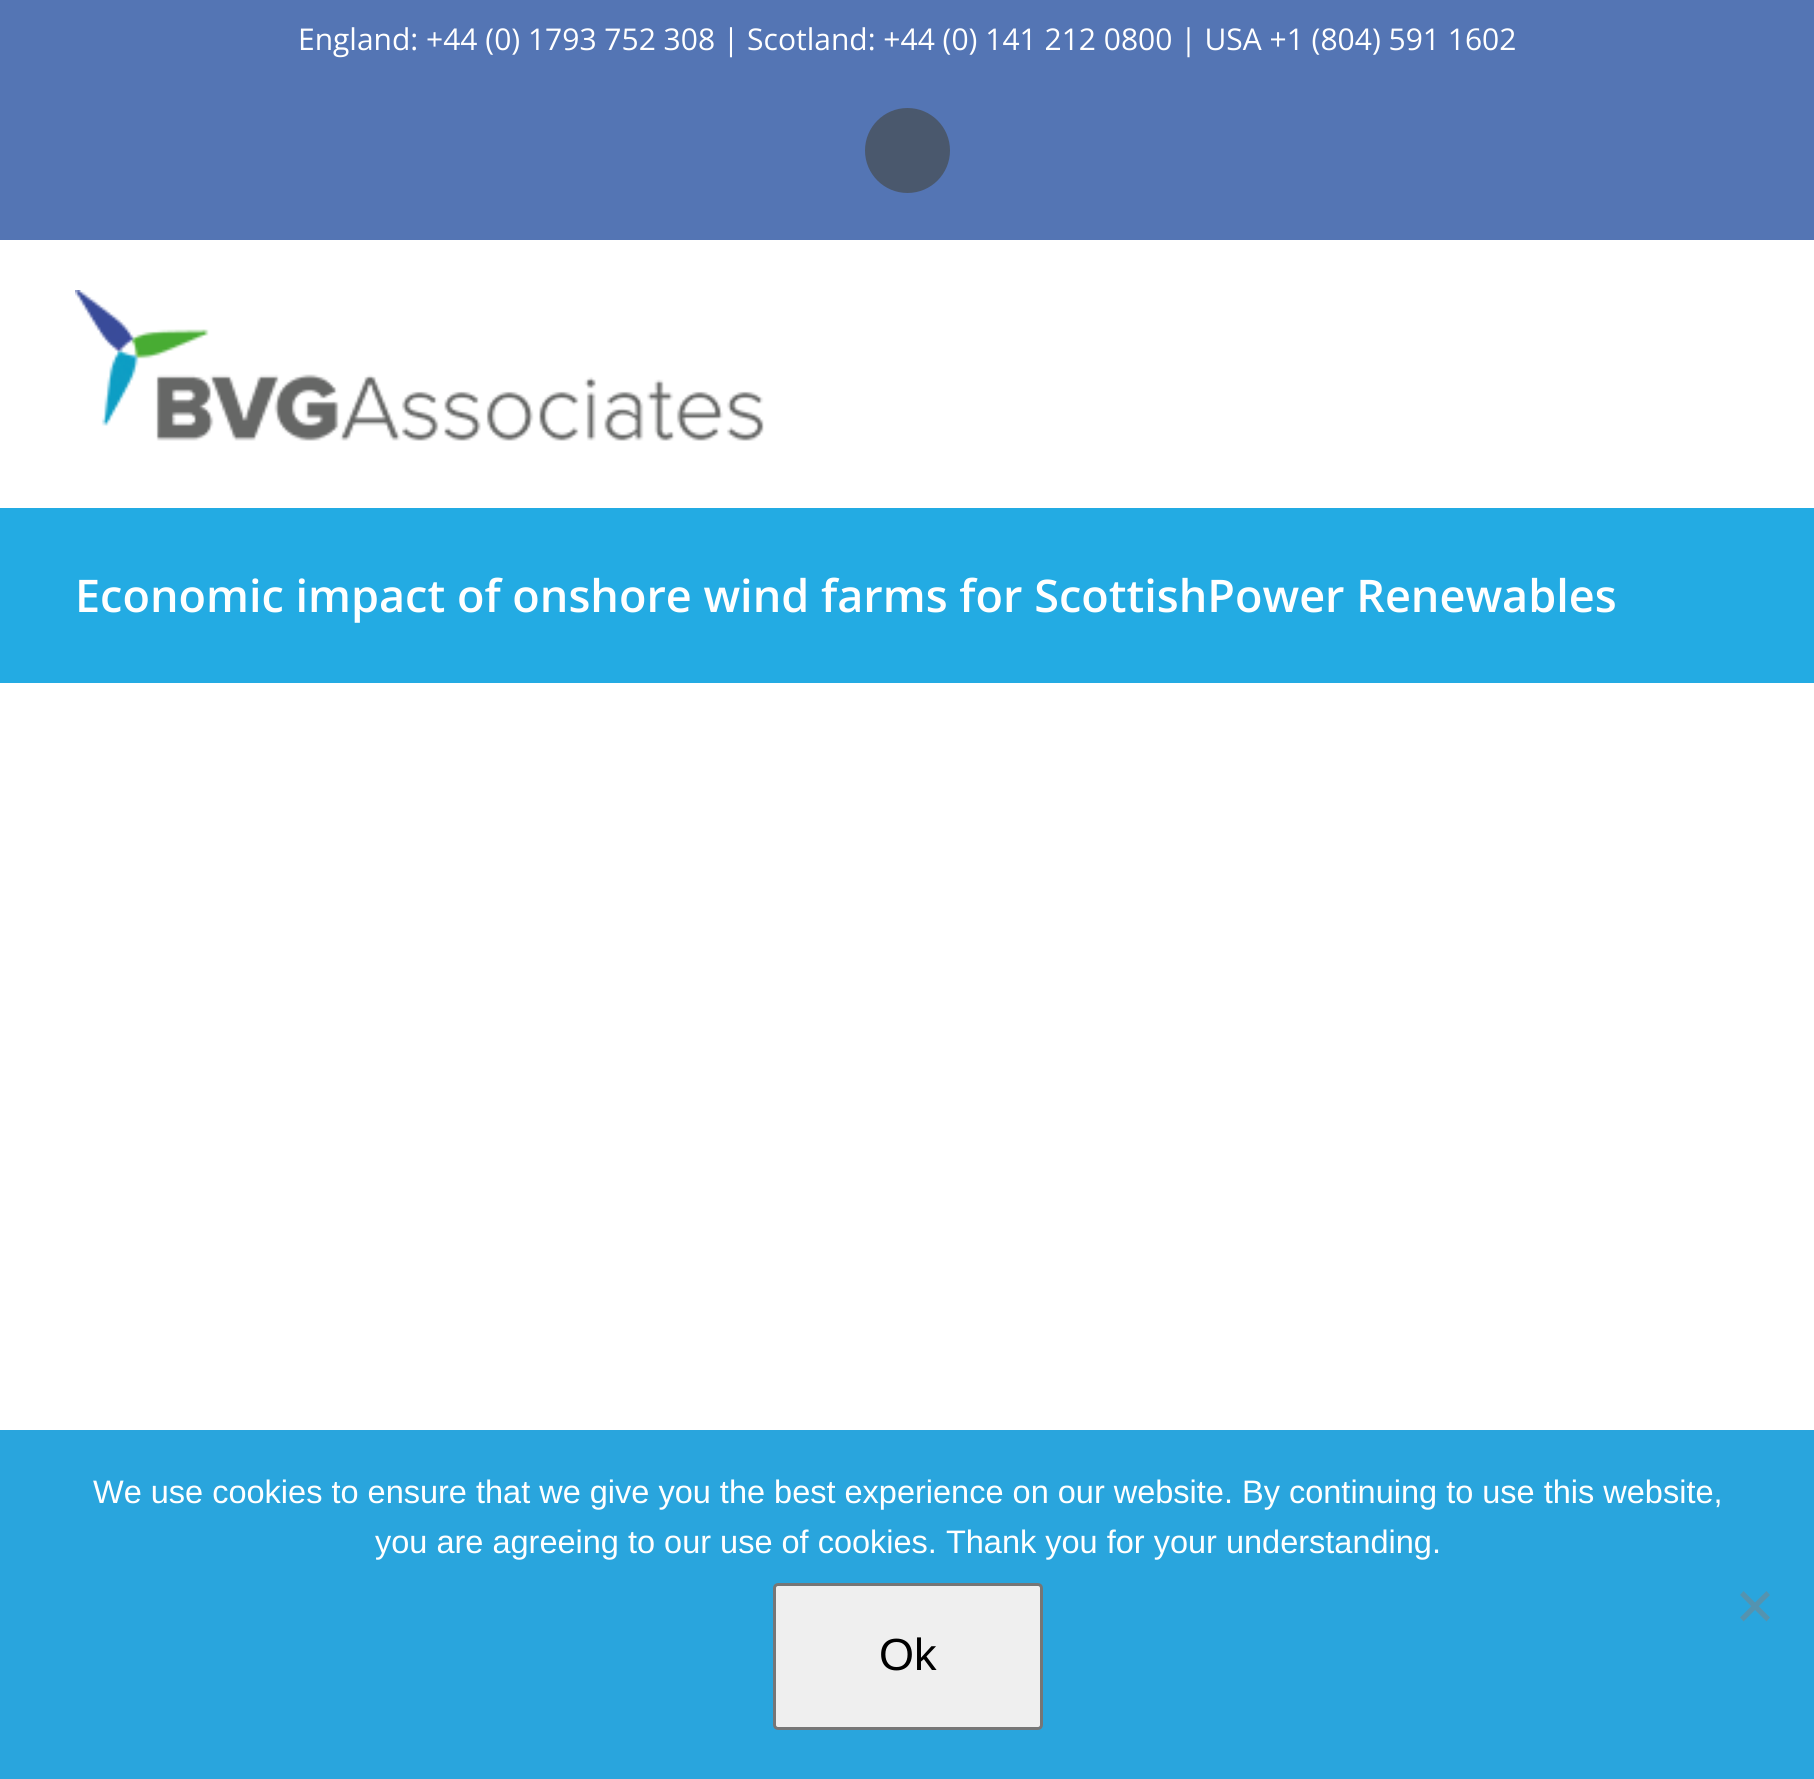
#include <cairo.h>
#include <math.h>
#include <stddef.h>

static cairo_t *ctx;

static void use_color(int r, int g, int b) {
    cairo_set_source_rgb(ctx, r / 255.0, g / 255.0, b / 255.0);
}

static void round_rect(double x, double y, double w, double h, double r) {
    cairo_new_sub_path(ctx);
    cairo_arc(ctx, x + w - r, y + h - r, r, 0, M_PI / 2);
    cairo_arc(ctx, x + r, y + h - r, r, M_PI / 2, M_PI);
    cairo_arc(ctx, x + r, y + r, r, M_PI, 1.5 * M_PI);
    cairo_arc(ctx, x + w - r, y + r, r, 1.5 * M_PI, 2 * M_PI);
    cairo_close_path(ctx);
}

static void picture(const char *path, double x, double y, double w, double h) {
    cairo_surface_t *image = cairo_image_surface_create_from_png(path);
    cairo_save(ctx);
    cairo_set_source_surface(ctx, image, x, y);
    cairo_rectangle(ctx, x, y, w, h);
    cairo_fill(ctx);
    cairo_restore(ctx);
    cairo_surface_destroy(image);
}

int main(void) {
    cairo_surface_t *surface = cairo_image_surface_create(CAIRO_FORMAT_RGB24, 1814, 1779);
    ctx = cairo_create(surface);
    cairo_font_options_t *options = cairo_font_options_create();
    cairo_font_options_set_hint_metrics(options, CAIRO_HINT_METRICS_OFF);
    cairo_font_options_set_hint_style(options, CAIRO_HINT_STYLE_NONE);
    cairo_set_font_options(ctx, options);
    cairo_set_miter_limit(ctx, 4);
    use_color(255, 255, 255);
    cairo_paint(ctx);
    use_color(84, 117, 180);
    cairo_rectangle(ctx, 0, 0, 1814, 240);
    cairo_fill(ctx);
    cairo_select_font_face(ctx, "Open Sans", CAIRO_FONT_SLANT_NORMAL, CAIRO_FONT_WEIGHT_NORMAL);
    cairo_set_font_size(ctx, 30);
    use_color(255, 255, 255);
    cairo_move_to(ctx, 298, 50);
    cairo_show_text(ctx, "England: +44 (0) 1793 752 308 | Scotland: +44 (0) 141 212 0800 | USA +1 (804) 591 1602");
    use_color(74, 88, 109);
    cairo_new_path(ctx);
    cairo_arc(ctx, 907.5, 150.5, 41, 0, 2 * M_PI);
    cairo_fill_preserve(ctx);
    cairo_set_line_width(ctx, 3);
    cairo_stroke(ctx);
    picture("img1.png", 75, 290, 689, 151);
    use_color(35, 171, 227);
    cairo_rectangle(ctx, 0, 508, 1814, 175);
    cairo_fill(ctx);
    cairo_select_font_face(ctx, "Open Sans SemiBold", CAIRO_FONT_SLANT_NORMAL, CAIRO_FONT_WEIGHT_NORMAL);
    cairo_set_font_size(ctx, 45);
    use_color(255, 255, 255);
    cairo_move_to(ctx, 75, 612);
    cairo_show_text(ctx, "Economic impact of onshore wind farms for ScottishPower Renewables");
    use_color(41, 165, 221);
    cairo_rectangle(ctx, 0, 1430, 1814, 349);
    cairo_fill(ctx);
    cairo_select_font_face(ctx, "Liberation Sans", CAIRO_FONT_SLANT_NORMAL, CAIRO_FONT_WEIGHT_NORMAL);
    cairo_set_font_size(ctx, 32.5);
    use_color(255, 255, 255);
    cairo_move_to(ctx, 93, 1503);
    cairo_show_text(ctx, "We use cookies to ensure that we give you the best experience on our website. By continuing to use this website,");
    cairo_move_to(ctx, 375, 1553);
    cairo_show_text(ctx, "you are agreeing to our use of cookies. Thank you for your understanding.");
    use_color(85, 147, 175);
    cairo_new_path(ctx);
    cairo_move_to(ctx, 1766.5, 1591);
    cairo_line_to(ctx, 1770, 1595);
    cairo_line_to(ctx, 1743.5, 1621.5);
    cairo_line_to(ctx, 1740, 1617.5);
    cairo_close_path(ctx);
    cairo_fill(ctx);
    cairo_new_path(ctx);
    cairo_move_to(ctx, 1740, 1595);
    cairo_line_to(ctx, 1743.5, 1591);
    cairo_line_to(ctx, 1770, 1617.5);
    cairo_line_to(ctx, 1766.5, 1621.5);
    cairo_close_path(ctx);
    cairo_fill(ctx);
    use_color(239, 239, 239);
    round_rect(774.5, 1584.5, 267, 144, 3.5);
    cairo_fill_preserve(ctx);
    use_color(118, 118, 118);
    cairo_stroke(ctx);
    cairo_set_font_size(ctx, 45);
    use_color(0, 0, 0);
    cairo_move_to(ctx, 879, 1670);
    cairo_show_text(ctx, "Ok");
    cairo_surface_write_to_png(surface, "result.png");
    cairo_font_options_destroy(options);
    cairo_destroy(ctx);
    cairo_surface_destroy(surface);
    return 0;
}
